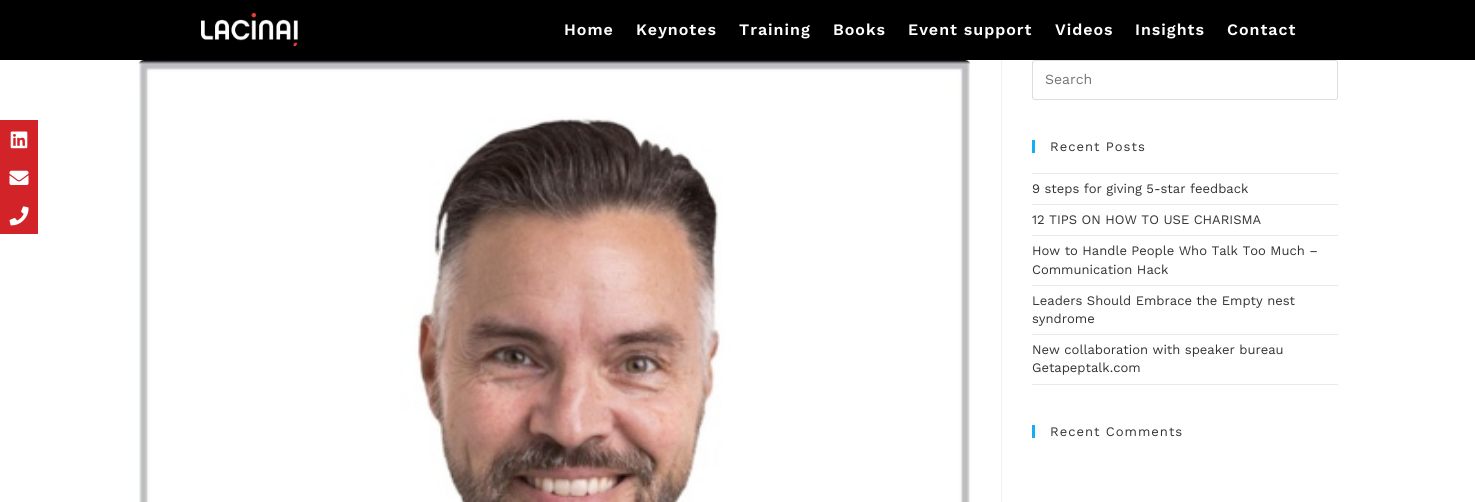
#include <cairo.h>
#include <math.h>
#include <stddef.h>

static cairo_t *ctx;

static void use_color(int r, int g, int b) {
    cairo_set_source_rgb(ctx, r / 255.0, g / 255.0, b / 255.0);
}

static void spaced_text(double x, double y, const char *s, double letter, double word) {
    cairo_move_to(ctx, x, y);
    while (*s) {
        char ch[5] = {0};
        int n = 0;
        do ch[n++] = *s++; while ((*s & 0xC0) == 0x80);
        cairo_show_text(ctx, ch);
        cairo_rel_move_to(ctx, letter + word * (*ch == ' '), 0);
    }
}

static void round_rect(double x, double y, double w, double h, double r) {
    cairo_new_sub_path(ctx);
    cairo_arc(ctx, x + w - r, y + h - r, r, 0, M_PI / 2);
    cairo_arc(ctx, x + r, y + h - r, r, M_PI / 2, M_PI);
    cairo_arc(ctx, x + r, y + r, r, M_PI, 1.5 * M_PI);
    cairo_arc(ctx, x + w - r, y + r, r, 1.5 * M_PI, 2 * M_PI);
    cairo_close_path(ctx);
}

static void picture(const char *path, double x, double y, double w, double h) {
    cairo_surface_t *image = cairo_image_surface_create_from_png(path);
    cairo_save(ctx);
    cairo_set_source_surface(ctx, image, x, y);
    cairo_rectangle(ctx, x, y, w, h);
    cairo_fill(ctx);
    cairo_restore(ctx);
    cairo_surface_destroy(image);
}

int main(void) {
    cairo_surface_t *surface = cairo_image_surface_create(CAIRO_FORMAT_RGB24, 1475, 502);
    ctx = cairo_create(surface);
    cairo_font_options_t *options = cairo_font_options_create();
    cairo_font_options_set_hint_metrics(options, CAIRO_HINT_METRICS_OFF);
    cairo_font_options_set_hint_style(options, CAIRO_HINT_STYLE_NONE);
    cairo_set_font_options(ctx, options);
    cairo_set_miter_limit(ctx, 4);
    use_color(255, 255, 255);
    cairo_paint(ctx);
    use_color(0, 0, 0);
    cairo_rectangle(ctx, 0, 0, 1475, 60);
    cairo_fill(ctx);
    picture("img1.png", 201, 13, 97, 34);
    cairo_select_font_face(ctx, "Work Sans SemiBold", CAIRO_FONT_SLANT_NORMAL, CAIRO_FONT_WEIGHT_NORMAL);
    cairo_set_font_size(ctx, 16);
    use_color(255, 255, 255);
    spaced_text(564, 35, "Home", 1, 0);
    spaced_text(636, 35, "Keynotes", 1, 0);
    spaced_text(739, 35, "Training", 1, 0);
    spaced_text(833, 35, "Books", 1, 0);
    spaced_text(908, 35, "Event support", 1, 0);
    spaced_text(1055, 35, "Videos", 1, 0);
    spaced_text(1135, 35, "Insights", 1, 0);
    spaced_text(1227, 35, "Contact", 1, 0);
    use_color(210, 35, 41);
    cairo_rectangle(ctx, 0, 120, 38, 114);
    cairo_fill(ctx);
    picture("img2.png", 10, 131, 18, 18);
    picture("img3.png", 9, 170, 20, 15);
    picture("img4.png", 9, 206, 20, 20);
    use_color(241, 241, 241);
    cairo_rectangle(ctx, 1001, 60, 1, 442);
    cairo_fill(ctx);
    picture("img5.png", 138, 60, 833, 442);
    round_rect(1032.5, 60.5, 305, 39, 2.5);
    use_color(221, 221, 221);
    cairo_set_line_width(ctx, 1);
    cairo_stroke(ctx);
    cairo_select_font_face(ctx, "Work Sans", CAIRO_FONT_SLANT_NORMAL, CAIRO_FONT_WEIGHT_NORMAL);
    cairo_set_font_size(ctx, 14);
    use_color(117, 117, 117);
    cairo_move_to(ctx, 1045, 84);
    cairo_show_text(ctx, "Search");
    use_color(19, 175, 240);
    cairo_rectangle(ctx, 1032, 140, 3, 13);
    cairo_fill(ctx);
    cairo_set_font_size(ctx, 13);
    use_color(51, 51, 51);
    spaced_text(1050, 151, "Recent Posts", 1, 0);
    use_color(233, 233, 233);
    cairo_rectangle(ctx, 1032, 173, 306, 1);
    cairo_fill(ctx);
    cairo_rectangle(ctx, 1032, 204, 306, 1);
    cairo_fill(ctx);
    use_color(51, 51, 51);
    cairo_move_to(ctx, 1032, 193);
    cairo_show_text(ctx, "9 steps for giving 5-star feedback");
    use_color(233, 233, 233);
    cairo_rectangle(ctx, 1032, 235, 306, 1);
    cairo_fill(ctx);
    use_color(51, 51, 51);
    cairo_move_to(ctx, 1032, 224);
    cairo_show_text(ctx, "12 TIPS ON HOW TO USE CHARISMA");
    use_color(233, 233, 233);
    cairo_rectangle(ctx, 1032, 285, 306, 1);
    cairo_fill(ctx);
    use_color(51, 51, 51);
    cairo_move_to(ctx, 1032, 255);
    cairo_show_text(ctx, "How to Handle People Who Talk Too Much –");
    cairo_move_to(ctx, 1032, 274);
    cairo_show_text(ctx, "Communication Hack");
    use_color(233, 233, 233);
    cairo_rectangle(ctx, 1032, 334, 306, 1);
    cairo_fill(ctx);
    use_color(51, 51, 51);
    cairo_move_to(ctx, 1032, 305);
    cairo_show_text(ctx, "Leaders Should Embrace the Empty nest");
    cairo_move_to(ctx, 1032, 323);
    cairo_show_text(ctx, "syndrome");
    use_color(233, 233, 233);
    cairo_rectangle(ctx, 1032, 384, 306, 1);
    cairo_fill(ctx);
    use_color(51, 51, 51);
    cairo_move_to(ctx, 1032, 354);
    cairo_show_text(ctx, "New collaboration with speaker bureau");
    cairo_move_to(ctx, 1032, 372);
    cairo_show_text(ctx, "Getapeptalk.com");
    use_color(19, 175, 240);
    cairo_rectangle(ctx, 1032, 425, 3, 13);
    cairo_fill(ctx);
    use_color(51, 51, 51);
    spaced_text(1050, 436, "Recent Comments", 1, 0);
    cairo_surface_write_to_png(surface, "result.png");
    cairo_font_options_destroy(options);
    cairo_destroy(ctx);
    cairo_surface_destroy(surface);
    return 0;
}
